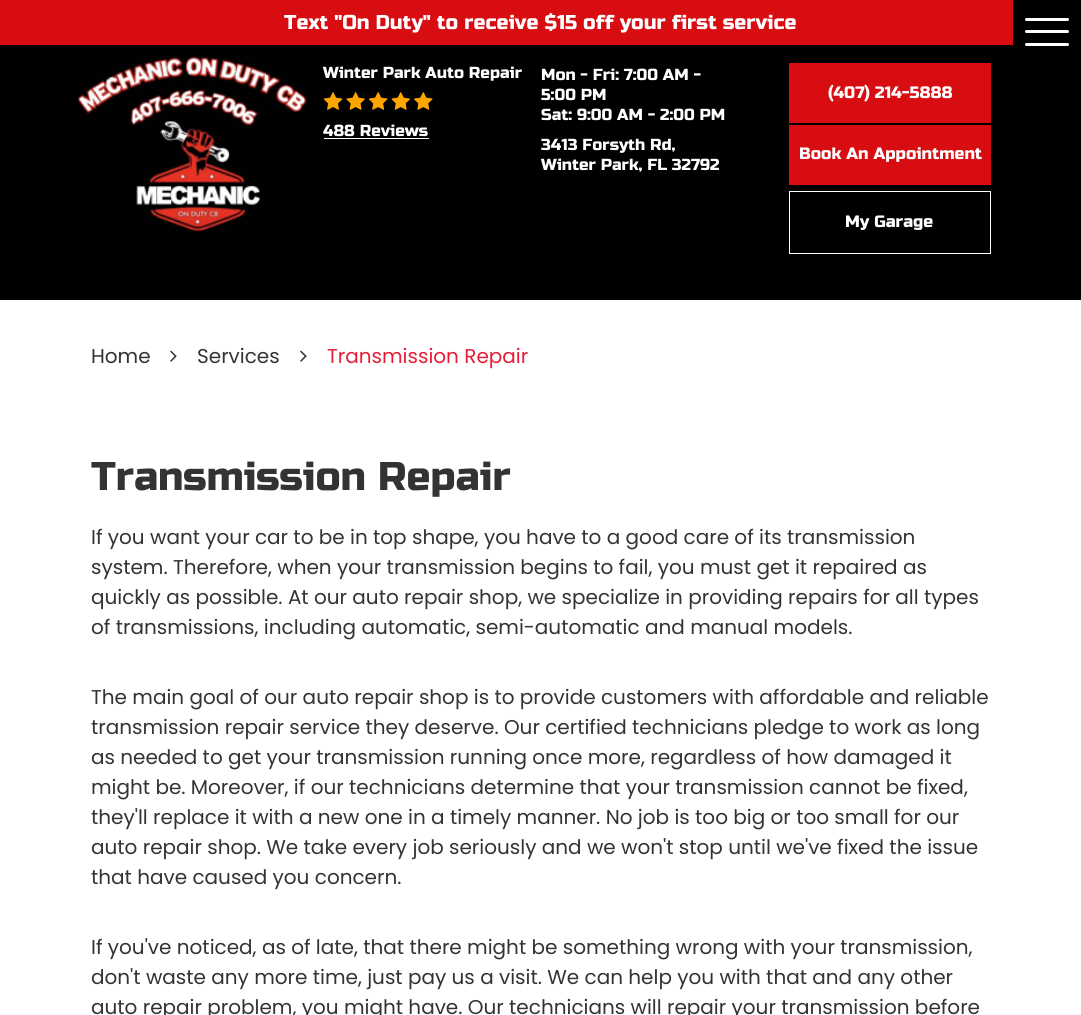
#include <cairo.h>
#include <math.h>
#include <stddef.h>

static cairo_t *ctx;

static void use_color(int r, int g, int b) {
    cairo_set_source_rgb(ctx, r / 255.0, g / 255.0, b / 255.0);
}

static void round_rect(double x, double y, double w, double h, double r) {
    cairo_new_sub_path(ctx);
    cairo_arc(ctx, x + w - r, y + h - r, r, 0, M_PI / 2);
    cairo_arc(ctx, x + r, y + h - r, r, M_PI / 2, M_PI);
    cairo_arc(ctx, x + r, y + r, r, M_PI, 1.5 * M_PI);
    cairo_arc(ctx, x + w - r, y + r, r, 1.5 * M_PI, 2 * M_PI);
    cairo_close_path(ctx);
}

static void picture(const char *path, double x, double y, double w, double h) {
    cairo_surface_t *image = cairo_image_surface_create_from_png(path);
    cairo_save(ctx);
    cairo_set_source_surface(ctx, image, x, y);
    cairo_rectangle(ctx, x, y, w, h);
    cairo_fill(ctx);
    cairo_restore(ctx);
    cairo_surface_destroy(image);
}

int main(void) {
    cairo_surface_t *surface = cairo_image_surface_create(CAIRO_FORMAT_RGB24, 1081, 1015);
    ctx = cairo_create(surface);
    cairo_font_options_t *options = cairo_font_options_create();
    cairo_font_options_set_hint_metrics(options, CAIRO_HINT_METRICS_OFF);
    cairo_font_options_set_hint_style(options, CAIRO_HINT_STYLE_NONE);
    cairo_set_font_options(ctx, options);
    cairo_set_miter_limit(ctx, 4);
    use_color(255, 255, 255);
    cairo_paint(ctx);
    use_color(215, 13, 18);
    cairo_rectangle(ctx, 0, 0, 1013, 45);
    cairo_fill(ctx);
    cairo_select_font_face(ctx, "Russo One", CAIRO_FONT_SLANT_NORMAL, CAIRO_FONT_WEIGHT_NORMAL);
    cairo_set_font_size(ctx, 20);
    use_color(255, 255, 255);
    cairo_move_to(ctx, 284, 29);
    cairo_show_text(ctx, "Text \"On Duty\" to receive $15 off your first service");
    use_color(0, 0, 0);
    cairo_rectangle(ctx, 0, 45, 1081, 255);
    cairo_fill(ctx);
    cairo_rectangle(ctx, 1013, 0, 68, 45);
    cairo_fill(ctx);
    use_color(255, 255, 255);
    round_rect(1025, 30, 44, 3, 1.5);
    cairo_fill(ctx);
    round_rect(1025, 18, 44, 3, 1.5);
    cairo_fill(ctx);
    round_rect(1025, 43, 44, 3, 1.5);
    cairo_fill(ctx);
    picture("img1.png", 78, 55, 229, 177);
    cairo_set_font_size(ctx, 16);
    cairo_move_to(ctx, 323, 78);
    cairo_show_text(ctx, "Winter Park Auto Repair");
    picture("img2.png", 323, 92, 110, 18);
    cairo_move_to(ctx, 323, 136);
    cairo_show_text(ctx, "488 Reviews");
    cairo_rectangle(ctx, 324, 138, 105, 1);
    cairo_fill(ctx);
    cairo_move_to(ctx, 541, 80);
    cairo_show_text(ctx, "Mon - Fri: 7:00 AM -");
    cairo_move_to(ctx, 541, 100);
    cairo_show_text(ctx, "5:00 PM");
    cairo_move_to(ctx, 541, 120);
    cairo_show_text(ctx, "Sat: 9:00 AM - 2:00 PM");
    cairo_move_to(ctx, 541, 150);
    cairo_show_text(ctx, "3413 Forsyth Rd,");
    cairo_move_to(ctx, 541, 170);
    cairo_show_text(ctx, "Winter Park, FL 32792");
    use_color(215, 13, 18);
    cairo_rectangle(ctx, 789, 63, 202, 60);
    cairo_fill(ctx);
    cairo_set_font_size(ctx, 16.5);
    use_color(255, 255, 255);
    cairo_move_to(ctx, 828, 98);
    cairo_show_text(ctx, "(407) 214-5888");
    use_color(215, 13, 18);
    cairo_rectangle(ctx, 789, 125, 202, 60);
    cairo_fill(ctx);
    use_color(255, 255, 255);
    cairo_move_to(ctx, 799, 159);
    cairo_show_text(ctx, "Book An Appointment");
    cairo_rectangle(ctx, 789.5, 191.5, 201, 62);
    cairo_set_line_width(ctx, 1);
    cairo_stroke(ctx);
    cairo_move_to(ctx, 845, 227);
    cairo_show_text(ctx, "My Garage");
    cairo_select_font_face(ctx, "Poppins", CAIRO_FONT_SLANT_NORMAL, CAIRO_FONT_WEIGHT_NORMAL);
    cairo_set_font_size(ctx, 20);
    use_color(51, 51, 51);
    cairo_move_to(ctx, 91, 363);
    cairo_show_text(ctx, "Home");
    picture("img3.png", 170, 350, 7, 12);
    cairo_move_to(ctx, 197, 363);
    cairo_show_text(ctx, "Services");
    picture("img3.png", 300, 350, 7, 12);
    use_color(231, 29, 54);
    cairo_move_to(ctx, 327, 363);
    cairo_show_text(ctx, "Transmission Repair");
    cairo_select_font_face(ctx, "Russo One", CAIRO_FONT_SLANT_NORMAL, CAIRO_FONT_WEIGHT_NORMAL);
    cairo_set_font_size(ctx, 40);
    use_color(51, 51, 51);
    cairo_move_to(ctx, 91, 490);
    cairo_show_text(ctx, "Transmission Repair");
    cairo_select_font_face(ctx, "Poppins", CAIRO_FONT_SLANT_NORMAL, CAIRO_FONT_WEIGHT_NORMAL);
    cairo_set_font_size(ctx, 20);
    cairo_move_to(ctx, 91, 544);
    cairo_show_text(ctx, "If you want your car to be in top shape, you have to a good care of its transmission");
    cairo_move_to(ctx, 91, 574);
    cairo_show_text(ctx, "system. Therefore, when your transmission begins to fail, you must get it repaired as");
    cairo_move_to(ctx, 91, 604);
    cairo_show_text(ctx, "quickly as possible. At our auto repair shop, we specialize in providing repairs for all types");
    cairo_move_to(ctx, 91, 634);
    cairo_show_text(ctx, "of transmissions, including automatic, semi-automatic and manual models.");
    cairo_move_to(ctx, 91, 704);
    cairo_show_text(ctx, "The main goal of our auto repair shop is to provide customers with affordable and reliable");
    cairo_move_to(ctx, 91, 734);
    cairo_show_text(ctx, "transmission repair service they deserve. Our certified technicians pledge to work as long");
    cairo_move_to(ctx, 91, 764);
    cairo_show_text(ctx, "as needed to get your transmission running once more, regardless of how damaged it");
    cairo_move_to(ctx, 91, 794);
    cairo_show_text(ctx, "might be. Moreover, if our technicians determine that your transmission cannot be fixed,");
    cairo_move_to(ctx, 91, 824);
    cairo_show_text(ctx, "they'll replace it with a new one in a timely manner. No job is too big or too small for our");
    cairo_move_to(ctx, 91, 854);
    cairo_show_text(ctx, "auto repair shop. We take every job seriously and we won't stop until we've fixed the issue");
    cairo_move_to(ctx, 91, 884);
    cairo_show_text(ctx, "that have caused you concern.");
    cairo_move_to(ctx, 91, 954);
    cairo_show_text(ctx, "If you've noticed, as of late, that there might be something wrong with your transmission,");
    cairo_move_to(ctx, 91, 984);
    cairo_show_text(ctx, "don't waste any more time, just pay us a visit. We can help you with that and any other");
    cairo_move_to(ctx, 91, 1014);
    cairo_show_text(ctx, "auto repair problem, you might have. Our technicians will repair your transmission before");
    cairo_surface_write_to_png(surface, "result.png");
    cairo_font_options_destroy(options);
    cairo_destroy(ctx);
    cairo_surface_destroy(surface);
    return 0;
}
